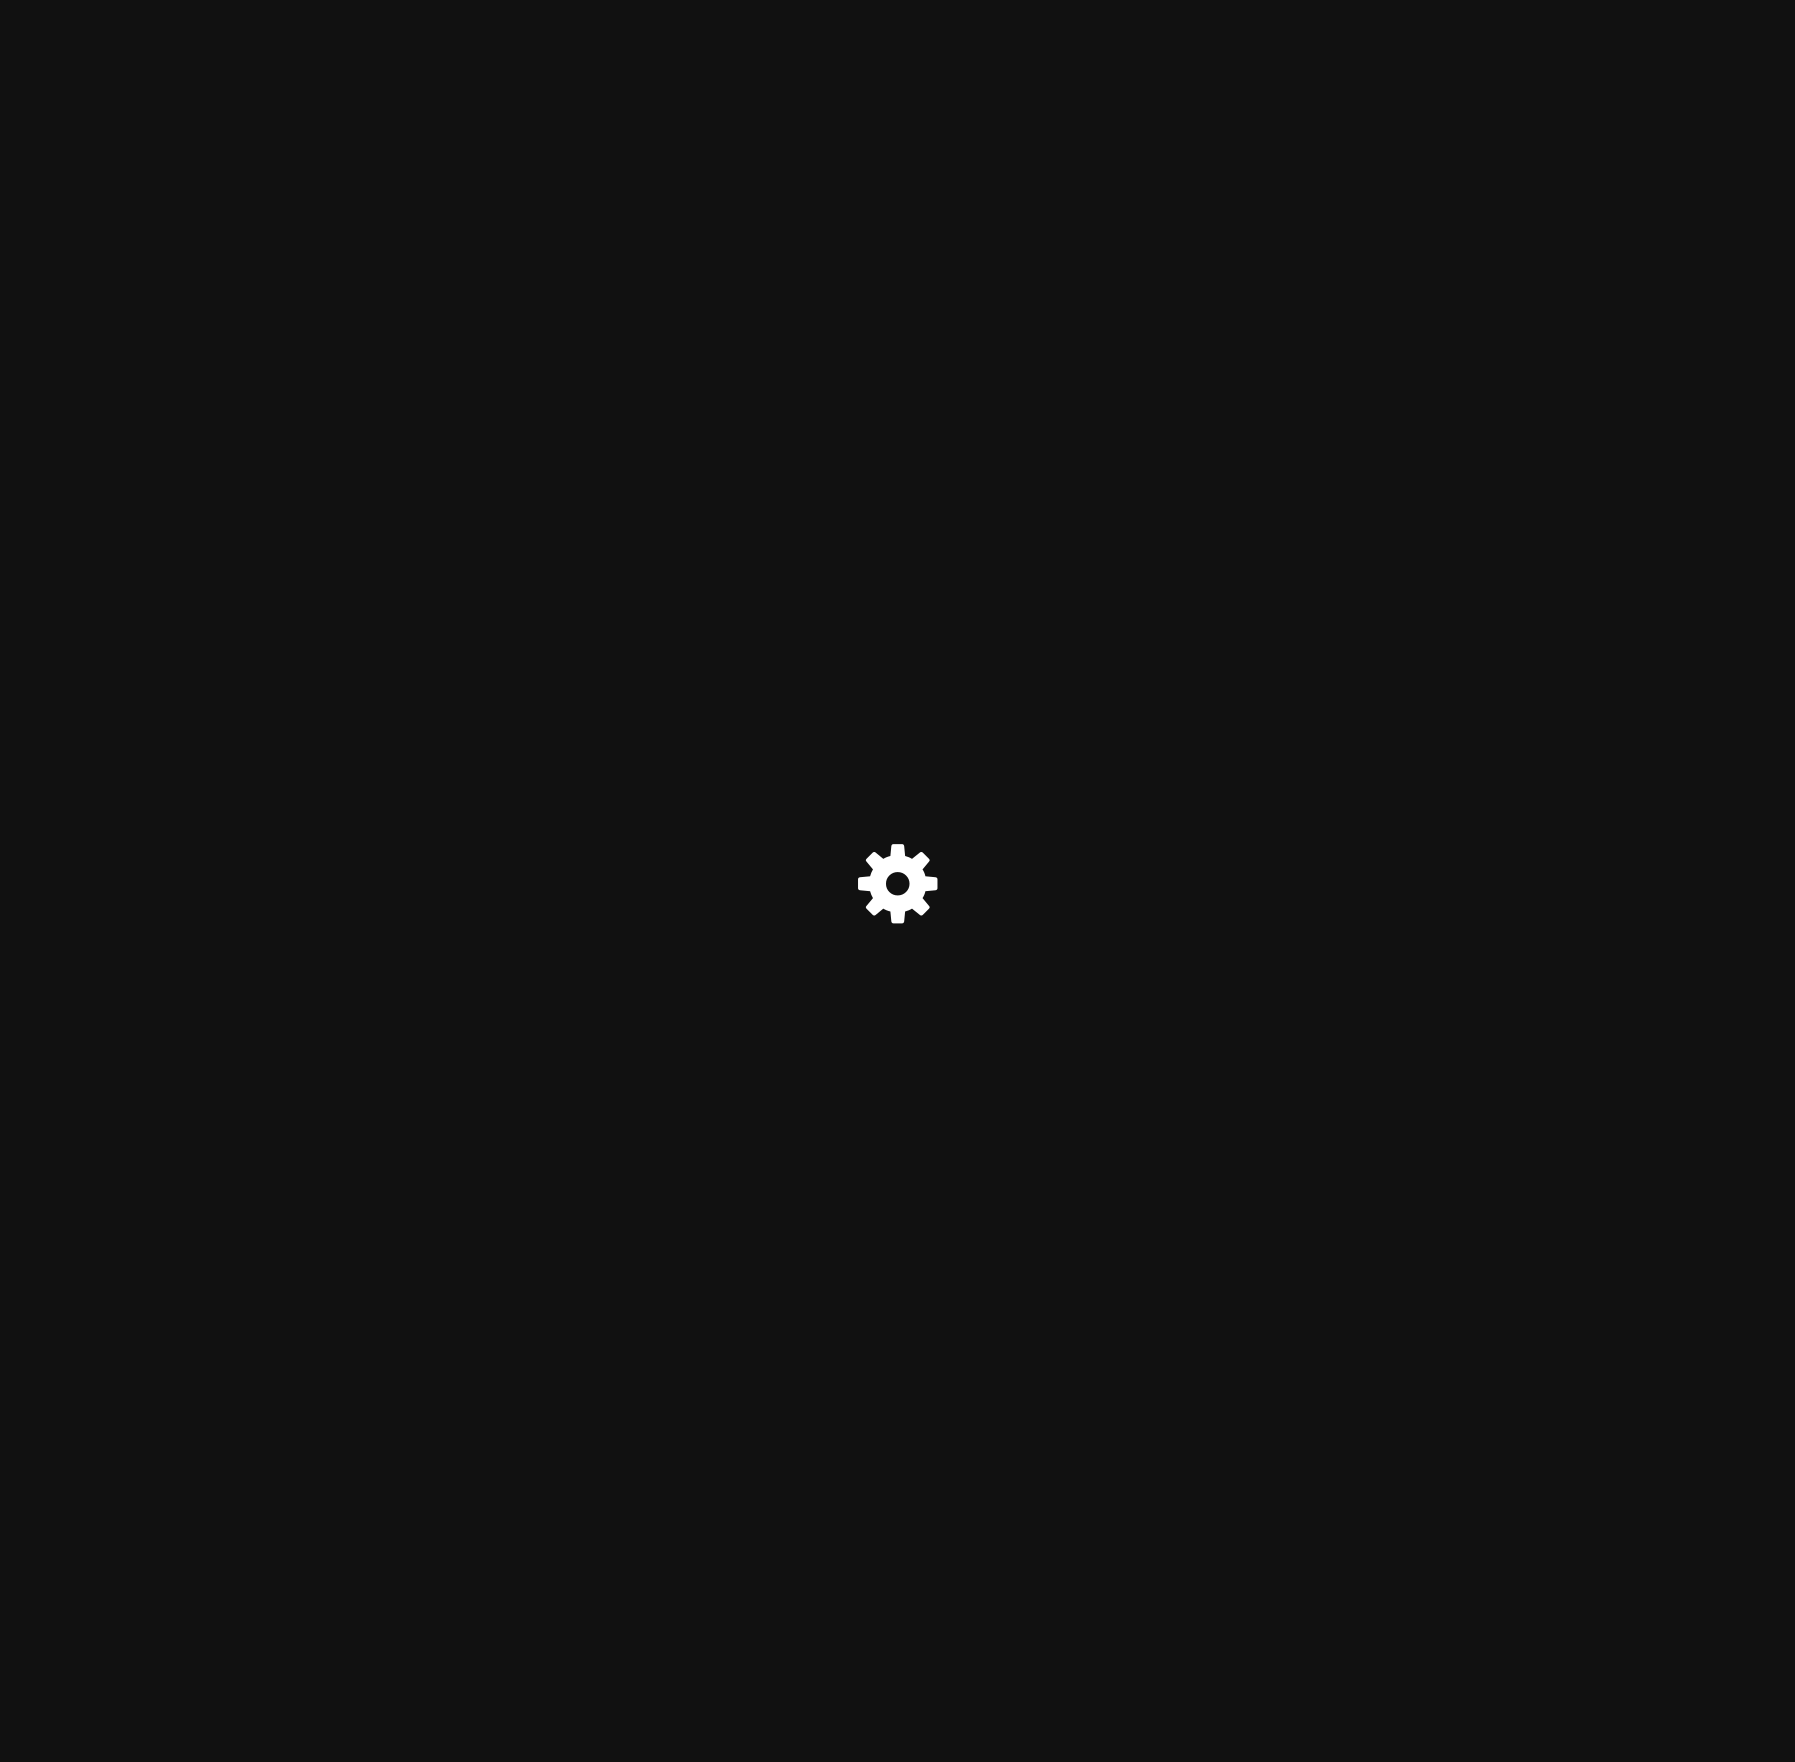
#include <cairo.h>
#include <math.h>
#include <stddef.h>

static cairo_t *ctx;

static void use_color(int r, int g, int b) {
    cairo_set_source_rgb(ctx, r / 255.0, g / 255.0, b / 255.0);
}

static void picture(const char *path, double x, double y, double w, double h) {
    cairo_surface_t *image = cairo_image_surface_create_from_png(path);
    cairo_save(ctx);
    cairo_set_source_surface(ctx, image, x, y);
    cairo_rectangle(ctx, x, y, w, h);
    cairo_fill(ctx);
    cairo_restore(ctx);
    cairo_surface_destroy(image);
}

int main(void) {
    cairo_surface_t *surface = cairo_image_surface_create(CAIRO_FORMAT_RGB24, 1795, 1762);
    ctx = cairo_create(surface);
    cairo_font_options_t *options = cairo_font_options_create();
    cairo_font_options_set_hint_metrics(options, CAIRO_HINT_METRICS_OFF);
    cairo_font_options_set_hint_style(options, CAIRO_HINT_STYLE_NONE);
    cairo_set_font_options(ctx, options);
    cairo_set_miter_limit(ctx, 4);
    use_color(17, 17, 17);
    cairo_paint(ctx);
    picture("img1.png", 858, 844, 80, 80);
    cairo_surface_write_to_png(surface, "result.png");
    cairo_font_options_destroy(options);
    cairo_destroy(ctx);
    cairo_surface_destroy(surface);
    return 0;
}
